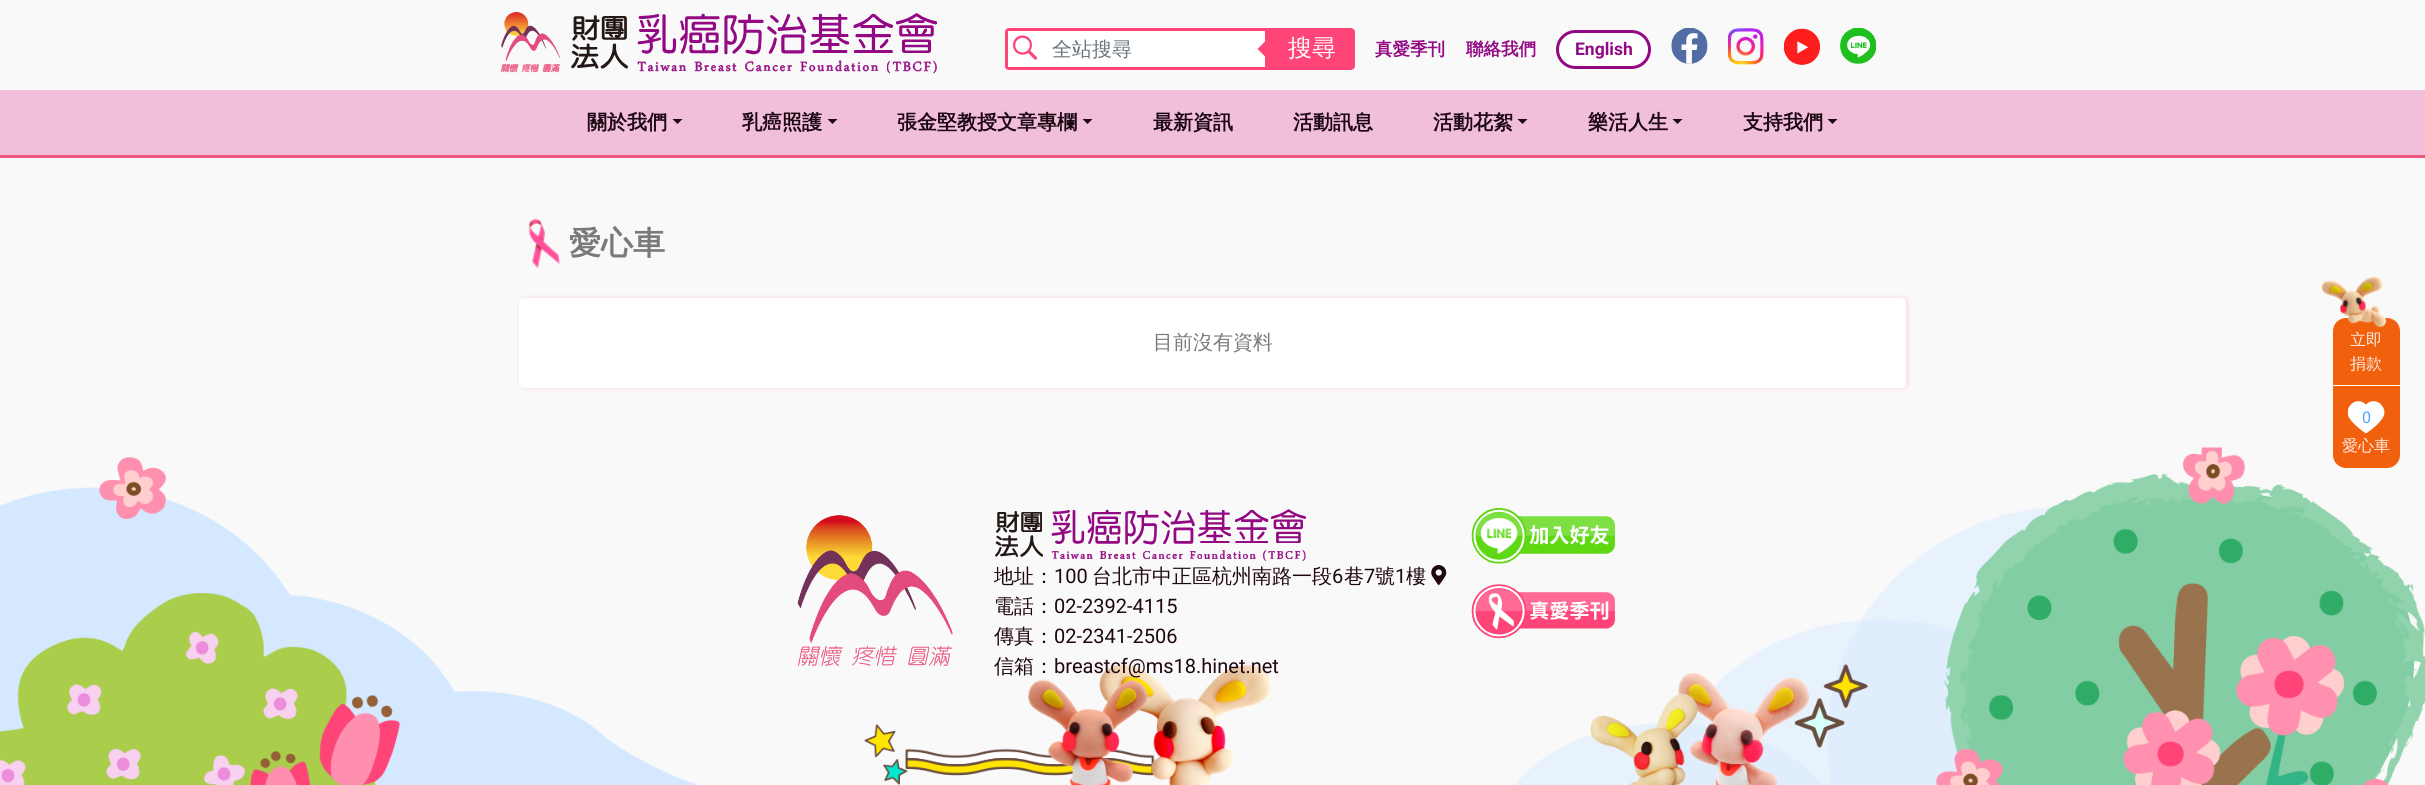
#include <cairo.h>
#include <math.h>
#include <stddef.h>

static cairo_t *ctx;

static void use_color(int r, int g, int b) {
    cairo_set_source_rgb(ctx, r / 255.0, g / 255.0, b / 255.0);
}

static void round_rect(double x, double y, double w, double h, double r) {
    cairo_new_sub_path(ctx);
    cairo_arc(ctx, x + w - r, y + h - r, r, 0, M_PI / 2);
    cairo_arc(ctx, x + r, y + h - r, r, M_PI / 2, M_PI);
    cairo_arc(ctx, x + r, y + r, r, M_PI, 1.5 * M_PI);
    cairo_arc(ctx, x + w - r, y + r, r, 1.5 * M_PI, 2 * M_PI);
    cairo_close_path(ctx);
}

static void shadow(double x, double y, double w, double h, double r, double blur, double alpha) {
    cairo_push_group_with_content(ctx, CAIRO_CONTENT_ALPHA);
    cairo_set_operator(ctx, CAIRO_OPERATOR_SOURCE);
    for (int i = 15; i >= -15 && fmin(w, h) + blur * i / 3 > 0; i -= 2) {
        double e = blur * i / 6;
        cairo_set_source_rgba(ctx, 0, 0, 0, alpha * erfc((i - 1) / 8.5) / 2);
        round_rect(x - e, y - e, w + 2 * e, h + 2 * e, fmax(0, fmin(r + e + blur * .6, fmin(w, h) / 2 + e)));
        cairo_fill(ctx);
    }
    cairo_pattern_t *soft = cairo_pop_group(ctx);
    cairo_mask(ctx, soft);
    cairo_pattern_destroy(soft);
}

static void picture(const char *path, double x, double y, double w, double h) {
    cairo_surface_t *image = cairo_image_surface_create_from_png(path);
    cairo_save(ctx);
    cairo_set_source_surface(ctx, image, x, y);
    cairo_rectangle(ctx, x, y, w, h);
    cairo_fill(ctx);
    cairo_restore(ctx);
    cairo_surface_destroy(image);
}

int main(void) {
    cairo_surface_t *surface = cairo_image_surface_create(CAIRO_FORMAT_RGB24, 2425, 785);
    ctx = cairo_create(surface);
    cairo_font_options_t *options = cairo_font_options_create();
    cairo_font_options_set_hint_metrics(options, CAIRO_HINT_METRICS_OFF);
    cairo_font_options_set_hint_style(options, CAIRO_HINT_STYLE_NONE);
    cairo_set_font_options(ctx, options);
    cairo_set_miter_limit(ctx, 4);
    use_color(250, 249, 249);
    cairo_paint(ctx);
    picture("img1.png", 500, 12, 438, 62);
    use_color(241, 191, 218);
    cairo_rectangle(ctx, 0, 90, 2425, 65);
    cairo_fill(ctx);
    use_color(235, 86, 123);
    cairo_rectangle(ctx, 0, 155, 2425, 3);
    cairo_fill(ctx);
    use_color(255, 255, 255);
    cairo_new_path(ctx);
    cairo_move_to(ctx, 1009, 28);
    cairo_line_to(ctx, 1268, 28);
    cairo_line_to(ctx, 1268, 70);
    cairo_line_to(ctx, 1009, 70);
    cairo_curve_to(ctx, 1007, 70, 1005, 68, 1005, 66);
    cairo_line_to(ctx, 1005, 32);
    cairo_curve_to(ctx, 1005, 30, 1007, 28, 1009, 28);
    cairo_close_path(ctx);
    cairo_fill(ctx);
    picture("img2.png", 1013, 35, 24, 25);
    cairo_new_path(ctx);
    cairo_move_to(ctx, 1009, 29.5);
    cairo_line_to(ctx, 1266.5, 29.5);
    cairo_line_to(ctx, 1266.5, 68.5);
    cairo_line_to(ctx, 1009, 68.5);
    cairo_curve_to(ctx, 1007.5, 68.5, 1006.5, 67.5, 1006.5, 66);
    cairo_line_to(ctx, 1006.5, 32);
    cairo_curve_to(ctx, 1006.5, 30.5, 1007.5, 29.5, 1009, 29.5);
    cairo_close_path(ctx);
    use_color(255, 68, 120);
    cairo_set_line_width(ctx, 3);
    cairo_stroke(ctx);
    cairo_select_font_face(ctx, "WenQuanYi Zen Hei Medium", CAIRO_FONT_SLANT_NORMAL, CAIRO_FONT_WEIGHT_NORMAL);
    cairo_set_font_size(ctx, 20);
    use_color(108, 117, 125);
    cairo_move_to(ctx, 1052, 56);
    cairo_show_text(ctx, "全站搜尋");
    use_color(255, 68, 120);
    cairo_new_path(ctx);
    cairo_move_to(ctx, 1268, 28);
    cairo_line_to(ctx, 1351, 28);
    cairo_curve_to(ctx, 1353, 28, 1355, 30, 1355, 32);
    cairo_line_to(ctx, 1355, 66);
    cairo_curve_to(ctx, 1355, 68, 1353, 70, 1351, 70);
    cairo_line_to(ctx, 1268, 70);
    cairo_close_path(ctx);
    cairo_fill(ctx);
    cairo_new_path(ctx);
    cairo_move_to(ctx, 1267.5, 39);
    cairo_line_to(ctx, 1267.5, 59);
    cairo_line_to(ctx, 1257.5, 49);
    cairo_close_path(ctx);
    cairo_fill(ctx);
    cairo_set_font_size(ctx, 24);
    use_color(255, 255, 255);
    cairo_move_to(ctx, 1288, 56);
    cairo_show_text(ctx, "搜尋");
    cairo_select_font_face(ctx, "WenQuanYi Zen Hei", CAIRO_FONT_SLANT_NORMAL, CAIRO_FONT_WEIGHT_BOLD);
    cairo_set_font_size(ctx, 17.5);
    use_color(146, 9, 131);
    cairo_move_to(ctx, 1375, 55);
    cairo_show_text(ctx, "真愛季刊");
    cairo_move_to(ctx, 1466, 55);
    cairo_show_text(ctx, "聯絡我們");
    use_color(255, 255, 255);
    round_rect(1557.5, 31.5, 92, 36, 18);
    cairo_fill_preserve(ctx);
    use_color(146, 9, 131);
    cairo_stroke(ctx);
    cairo_select_font_face(ctx, "Roboto", CAIRO_FONT_SLANT_NORMAL, CAIRO_FONT_WEIGHT_BOLD);
    cairo_move_to(ctx, 1575, 55);
    cairo_show_text(ctx, "English");
    picture("img3.png", 1671, 28, 37, 36);
    picture("img4.png", 1728, 28, 36, 37);
    picture("img5.png", 1784, 28, 36, 37);
    picture("img6.png", 1840, 28, 36, 36);
    cairo_select_font_face(ctx, "WenQuanYi Zen Hei", CAIRO_FONT_SLANT_NORMAL, CAIRO_FONT_WEIGHT_BOLD);
    cairo_set_font_size(ctx, 20);
    use_color(29, 7, 19);
    cairo_move_to(ctx, 587, 129);
    cairo_show_text(ctx, "關於我們");
    cairo_new_path(ctx);
    cairo_move_to(ctx, 672.5, 119);
    cairo_line_to(ctx, 682.5, 119);
    cairo_line_to(ctx, 677.5, 124);
    cairo_close_path(ctx);
    cairo_fill(ctx);
    cairo_move_to(ctx, 742, 129);
    cairo_show_text(ctx, "乳癌照護");
    cairo_new_path(ctx);
    cairo_move_to(ctx, 827.5, 119);
    cairo_line_to(ctx, 837.5, 119);
    cairo_line_to(ctx, 832.5, 124);
    cairo_close_path(ctx);
    cairo_fill(ctx);
    cairo_move_to(ctx, 897, 129);
    cairo_show_text(ctx, "張金堅教授文章專欄");
    cairo_new_path(ctx);
    cairo_move_to(ctx, 1082.5, 119);
    cairo_line_to(ctx, 1092.5, 119);
    cairo_line_to(ctx, 1087.5, 124);
    cairo_close_path(ctx);
    cairo_fill(ctx);
    cairo_move_to(ctx, 1153, 129);
    cairo_show_text(ctx, "最新資訊");
    cairo_move_to(ctx, 1293, 129);
    cairo_show_text(ctx, "活動訊息");
    cairo_move_to(ctx, 1433, 129);
    cairo_show_text(ctx, "活動花絮");
    cairo_new_path(ctx);
    cairo_move_to(ctx, 1517.5, 119);
    cairo_line_to(ctx, 1527.5, 119);
    cairo_line_to(ctx, 1522.5, 124);
    cairo_close_path(ctx);
    cairo_fill(ctx);
    cairo_move_to(ctx, 1588, 129);
    cairo_show_text(ctx, "樂活人生");
    cairo_new_path(ctx);
    cairo_move_to(ctx, 1672.5, 119);
    cairo_line_to(ctx, 1682.5, 119);
    cairo_line_to(ctx, 1677.5, 124);
    cairo_close_path(ctx);
    cairo_fill(ctx);
    cairo_move_to(ctx, 1743, 129);
    cairo_show_text(ctx, "支持我們");
    cairo_new_path(ctx);
    cairo_move_to(ctx, 1827.5, 119);
    cairo_line_to(ctx, 1837.5, 119);
    cairo_line_to(ctx, 1832.5, 124);
    cairo_close_path(ctx);
    cairo_fill(ctx);
    picture("img7.png", 528, 218, 33, 50);
    cairo_set_font_size(ctx, 32);
    use_color(122, 122, 122);
    cairo_move_to(ctx, 569, 254);
    cairo_show_text(ctx, "愛心車");
    use_color(235, 86, 123);
    shadow(520, 298, 1388, 90, 5, 2.5, 0.2);
    use_color(255, 255, 255);
    round_rect(519, 298, 1387, 90, 5);
    cairo_fill(ctx);
    cairo_select_font_face(ctx, "WenQuanYi Zen Hei Medium", CAIRO_FONT_SLANT_NORMAL, CAIRO_FONT_WEIGHT_NORMAL);
    cairo_set_font_size(ctx, 20);
    use_color(122, 122, 122);
    cairo_move_to(ctx, 1153, 349);
    cairo_show_text(ctx, "目前沒有資料");
    picture("img10.png", 0, 447, 2425, 338);
    use_color(241, 96, 13);
    round_rect(2333, 318, 67, 150, 13);
    cairo_fill(ctx);
    picture("img8.png", 2321, 276, 66, 51);
    use_color(255, 255, 255);
    cairo_rectangle(ctx, 2333, 385, 67, 1);
    cairo_fill(ctx);
    cairo_set_font_size(ctx, 16);
    use_color(253, 236, 226);
    cairo_move_to(ctx, 2350, 345);
    cairo_show_text(ctx, "立即");
    cairo_move_to(ctx, 2350, 369);
    cairo_show_text(ctx, "捐款");
    picture("img9.png", 2348, 401, 37, 33);
    cairo_select_font_face(ctx, "Roboto", CAIRO_FONT_SLANT_NORMAL, CAIRO_FONT_WEIGHT_NORMAL);
    use_color(83, 163, 255);
    cairo_move_to(ctx, 2362, 423);
    cairo_show_text(ctx, "0");
    cairo_select_font_face(ctx, "WenQuanYi Zen Hei Medium", CAIRO_FONT_SLANT_NORMAL, CAIRO_FONT_WEIGHT_NORMAL);
    use_color(253, 236, 226);
    cairo_move_to(ctx, 2342, 451);
    cairo_show_text(ctx, "愛心車");
    picture("img11.png", 797, 515, 156, 151);
    picture("img12.png", 995, 509, 311, 52);
    cairo_set_font_size(ctx, 20);
    use_color(29, 7, 19);
    cairo_move_to(ctx, 994, 583);
    cairo_show_text(ctx, "地址：");
    cairo_select_font_face(ctx, "Roboto", CAIRO_FONT_SLANT_NORMAL, CAIRO_FONT_WEIGHT_NORMAL);
    cairo_move_to(ctx, 1054, 583);
    cairo_show_text(ctx, "100");
    cairo_select_font_face(ctx, "WenQuanYi Zen Hei Medium", CAIRO_FONT_SLANT_NORMAL, CAIRO_FONT_WEIGHT_NORMAL);
    cairo_move_to(ctx, 1092, 583);
    cairo_show_text(ctx, "台北市中正區杭州南路一段");
    cairo_select_font_face(ctx, "Roboto", CAIRO_FONT_SLANT_NORMAL, CAIRO_FONT_WEIGHT_NORMAL);
    cairo_move_to(ctx, 1332, 583);
    cairo_show_text(ctx, "6");
    cairo_select_font_face(ctx, "WenQuanYi Zen Hei Medium", CAIRO_FONT_SLANT_NORMAL, CAIRO_FONT_WEIGHT_NORMAL);
    cairo_move_to(ctx, 1344, 583);
    cairo_show_text(ctx, "巷");
    cairo_select_font_face(ctx, "Roboto", CAIRO_FONT_SLANT_NORMAL, CAIRO_FONT_WEIGHT_NORMAL);
    cairo_move_to(ctx, 1364, 583);
    cairo_show_text(ctx, "7");
    cairo_select_font_face(ctx, "WenQuanYi Zen Hei Medium", CAIRO_FONT_SLANT_NORMAL, CAIRO_FONT_WEIGHT_NORMAL);
    cairo_move_to(ctx, 1375, 583);
    cairo_show_text(ctx, "號");
    cairo_select_font_face(ctx, "Roboto", CAIRO_FONT_SLANT_NORMAL, CAIRO_FONT_WEIGHT_NORMAL);
    cairo_move_to(ctx, 1395, 583);
    cairo_show_text(ctx, "1");
    cairo_select_font_face(ctx, "WenQuanYi Zen Hei Medium", CAIRO_FONT_SLANT_NORMAL, CAIRO_FONT_WEIGHT_NORMAL);
    cairo_move_to(ctx, 1406, 583);
    cairo_show_text(ctx, "樓");
    picture("img13.png", 1431, 565, 16, 20);
    cairo_move_to(ctx, 994, 613);
    cairo_show_text(ctx, "電話：");
    cairo_select_font_face(ctx, "Roboto", CAIRO_FONT_SLANT_NORMAL, CAIRO_FONT_WEIGHT_NORMAL);
    cairo_move_to(ctx, 1054, 613);
    cairo_show_text(ctx, "02-2392-4115");
    cairo_select_font_face(ctx, "WenQuanYi Zen Hei Medium", CAIRO_FONT_SLANT_NORMAL, CAIRO_FONT_WEIGHT_NORMAL);
    cairo_move_to(ctx, 994, 643);
    cairo_show_text(ctx, "傳真：");
    cairo_select_font_face(ctx, "Roboto", CAIRO_FONT_SLANT_NORMAL, CAIRO_FONT_WEIGHT_NORMAL);
    cairo_move_to(ctx, 1054, 643);
    cairo_show_text(ctx, "02-2341-2506");
    cairo_select_font_face(ctx, "WenQuanYi Zen Hei Medium", CAIRO_FONT_SLANT_NORMAL, CAIRO_FONT_WEIGHT_NORMAL);
    cairo_move_to(ctx, 994, 673);
    cairo_show_text(ctx, "信箱：");
    cairo_select_font_face(ctx, "Roboto", CAIRO_FONT_SLANT_NORMAL, CAIRO_FONT_WEIGHT_NORMAL);
    cairo_move_to(ctx, 1054, 673);
    cairo_show_text(ctx, "breastcf@ms18.hinet.net");
    picture("img14.png", 1471, 508, 144, 56);
    picture("img15.png", 1471, 584, 144, 55);
    cairo_surface_write_to_png(surface, "result.png");
    cairo_font_options_destroy(options);
    cairo_destroy(ctx);
    cairo_surface_destroy(surface);
    return 0;
}
